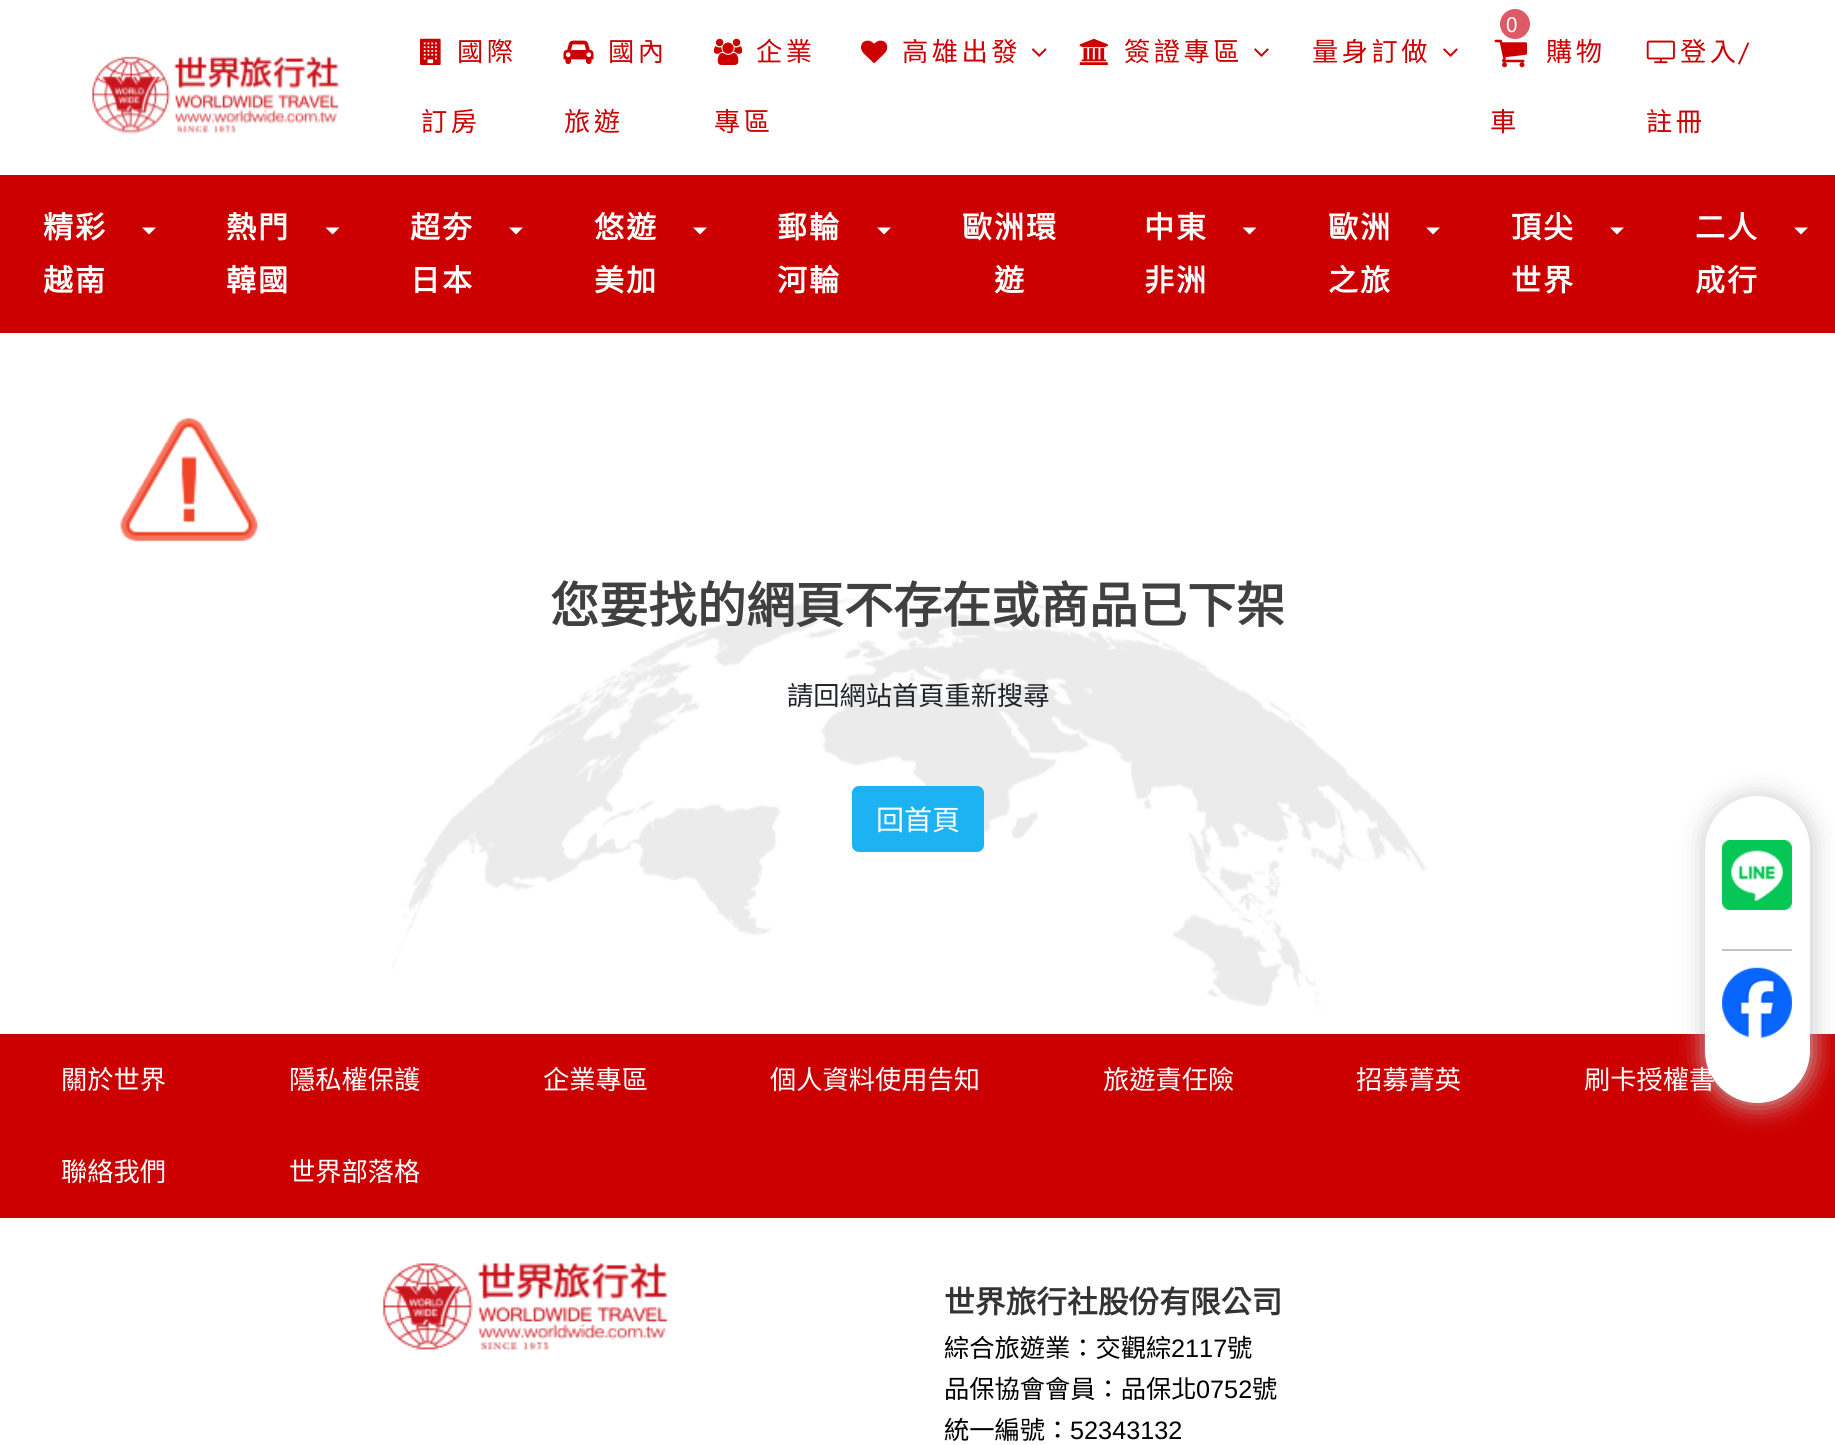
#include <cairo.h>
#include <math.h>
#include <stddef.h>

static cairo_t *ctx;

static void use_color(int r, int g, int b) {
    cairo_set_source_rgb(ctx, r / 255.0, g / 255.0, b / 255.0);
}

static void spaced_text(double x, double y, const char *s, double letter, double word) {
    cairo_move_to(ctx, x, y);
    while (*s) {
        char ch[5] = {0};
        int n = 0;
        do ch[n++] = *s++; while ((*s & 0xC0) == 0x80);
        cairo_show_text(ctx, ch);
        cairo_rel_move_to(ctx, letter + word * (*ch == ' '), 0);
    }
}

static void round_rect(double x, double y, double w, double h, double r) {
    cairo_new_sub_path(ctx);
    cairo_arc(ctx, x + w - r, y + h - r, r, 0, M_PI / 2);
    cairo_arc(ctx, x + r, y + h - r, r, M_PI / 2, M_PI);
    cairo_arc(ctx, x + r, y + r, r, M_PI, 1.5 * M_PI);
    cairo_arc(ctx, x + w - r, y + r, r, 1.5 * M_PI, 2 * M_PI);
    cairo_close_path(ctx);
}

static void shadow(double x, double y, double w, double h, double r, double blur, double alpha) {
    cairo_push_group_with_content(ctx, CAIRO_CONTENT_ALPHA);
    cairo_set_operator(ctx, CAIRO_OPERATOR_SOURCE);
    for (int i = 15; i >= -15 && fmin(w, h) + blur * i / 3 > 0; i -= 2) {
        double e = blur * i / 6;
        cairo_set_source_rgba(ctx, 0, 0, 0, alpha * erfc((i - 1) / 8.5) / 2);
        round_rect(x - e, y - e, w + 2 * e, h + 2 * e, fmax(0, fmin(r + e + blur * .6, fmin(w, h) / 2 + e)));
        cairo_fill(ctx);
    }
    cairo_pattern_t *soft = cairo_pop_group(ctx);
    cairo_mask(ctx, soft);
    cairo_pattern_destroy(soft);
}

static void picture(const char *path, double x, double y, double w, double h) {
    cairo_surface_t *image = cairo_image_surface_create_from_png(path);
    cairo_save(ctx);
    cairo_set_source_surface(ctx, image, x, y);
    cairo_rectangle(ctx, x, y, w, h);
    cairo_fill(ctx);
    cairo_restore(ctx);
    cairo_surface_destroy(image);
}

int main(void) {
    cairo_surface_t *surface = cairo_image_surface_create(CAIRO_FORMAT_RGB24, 1835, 1445);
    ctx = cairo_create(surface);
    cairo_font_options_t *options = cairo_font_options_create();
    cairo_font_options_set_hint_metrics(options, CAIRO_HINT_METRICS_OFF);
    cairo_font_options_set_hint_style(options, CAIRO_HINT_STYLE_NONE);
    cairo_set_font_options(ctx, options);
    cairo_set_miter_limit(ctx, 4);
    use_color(255, 255, 255);
    cairo_paint(ctx);
    picture("img1.png", 92, 56, 247, 78);
    picture("img2.png", 420, 38, 21, 27);
    cairo_select_font_face(ctx, "Noto Sans CJK TC", CAIRO_FONT_SLANT_NORMAL, CAIRO_FONT_WEIGHT_NORMAL);
    cairo_set_font_size(ctx, 26.25);
    use_color(204, 0, 0);
    spaced_text(457, 61, "國際", 3.5, 0);
    spaced_text(421, 131, "訂房", 3.5, 0);
    picture("img3.png", 563, 40, 31, 24);
    spaced_text(608, 61, "國內", 3.5, 0);
    spaced_text(564, 131, "旅遊", 3.5, 0);
    picture("img4.png", 714, 38, 29, 27);
    spaced_text(756, 61, "企業", 3.5, 0);
    spaced_text(714, 131, "專區", 3.5, 0);
    picture("img5.png", 861, 40, 27, 24);
    spaced_text(902, 61, "高雄出發", 3.5, 0);
    picture("img6.png", 1031, 48, 16, 9);
    picture("img7.png", 1079, 38, 29, 27);
    spaced_text(1124, 61, "簽證專區", 3.5, 0);
    picture("img8.png", 1254, 48, 15, 9);
    spaced_text(1312, 61, "量身訂做", 3.5, 0);
    picture("img8.png", 1443, 48, 15, 9);
    use_color(220, 91, 103);
    cairo_arc(ctx, 1515, 24, 15, 0, 2 * M_PI);
    cairo_fill(ctx);
    cairo_select_font_face(ctx, "PT Sans", CAIRO_FONT_SLANT_NORMAL, CAIRO_FONT_WEIGHT_NORMAL);
    cairo_set_font_size(ctx, 21);
    use_color(255, 255, 255);
    spaced_text(1506, 32, "0", 3.5, 0);
    picture("img9.png", 1494, 39, 33, 29);
    cairo_select_font_face(ctx, "Noto Sans CJK TC", CAIRO_FONT_SLANT_NORMAL, CAIRO_FONT_WEIGHT_NORMAL);
    cairo_set_font_size(ctx, 26.25);
    use_color(204, 0, 0);
    spaced_text(1546, 61, "購物", 3.5, 0);
    spaced_text(1490, 131, "車", 3.5, 0);
    picture("img10.png", 1646, 40, 29, 24);
    spaced_text(1680, 61, "登入", 3.5, 0);
    cairo_select_font_face(ctx, "PT Sans", CAIRO_FONT_SLANT_NORMAL, CAIRO_FONT_WEIGHT_NORMAL);
    spaced_text(1739, 61, "/", 3.5, 0);
    cairo_select_font_face(ctx, "Noto Sans CJK TC", CAIRO_FONT_SLANT_NORMAL, CAIRO_FONT_WEIGHT_NORMAL);
    spaced_text(1646, 131, "註冊", 3.5, 0);
    cairo_rectangle(ctx, 0, 175, 1835, 158);
    cairo_fill(ctx);
    cairo_select_font_face(ctx, "Noto Sans CJK TC", CAIRO_FONT_SLANT_NORMAL, CAIRO_FONT_WEIGHT_BOLD);
    cairo_set_font_size(ctx, 30);
    use_color(255, 255, 255);
    spaced_text(43, 238, "精彩", 2, 0);
    cairo_new_path(ctx);
    cairo_move_to(ctx, 142, 227.5);
    cairo_line_to(ctx, 156, 227.5);
    cairo_line_to(ctx, 149, 234.5);
    cairo_close_path(ctx);
    cairo_fill(ctx);
    spaced_text(43, 291, "越南", 2, 0);
    spaced_text(226, 238, "熱門", 2, 0);
    cairo_new_path(ctx);
    cairo_move_to(ctx, 325.5, 227.5);
    cairo_line_to(ctx, 339.5, 227.5);
    cairo_line_to(ctx, 332.5, 234.5);
    cairo_close_path(ctx);
    cairo_fill(ctx);
    spaced_text(226, 291, "韓國", 2, 0);
    spaced_text(410, 238, "超夯", 2, 0);
    cairo_new_path(ctx);
    cairo_move_to(ctx, 509, 227.5);
    cairo_line_to(ctx, 523, 227.5);
    cairo_line_to(ctx, 516, 234.5);
    cairo_close_path(ctx);
    cairo_fill(ctx);
    spaced_text(410, 291, "日本", 2, 0);
    spaced_text(594, 238, "悠遊", 2, 0);
    cairo_new_path(ctx);
    cairo_move_to(ctx, 693, 227.5);
    cairo_line_to(ctx, 707, 227.5);
    cairo_line_to(ctx, 700, 234.5);
    cairo_close_path(ctx);
    cairo_fill(ctx);
    spaced_text(594, 291, "美加", 2, 0);
    spaced_text(777, 238, "郵輪", 2, 0);
    cairo_new_path(ctx);
    cairo_move_to(ctx, 877, 227.5);
    cairo_line_to(ctx, 891, 227.5);
    cairo_line_to(ctx, 884, 234.5);
    cairo_close_path(ctx);
    cairo_fill(ctx);
    spaced_text(777, 291, "河輪", 2, 0);
    spaced_text(962, 238, "歐洲環", 2, 0);
    spaced_text(994, 291, "遊", 2, 0);
    spaced_text(1144, 238, "中東", 2, 0);
    cairo_new_path(ctx);
    cairo_move_to(ctx, 1242.5, 227.5);
    cairo_line_to(ctx, 1256.5, 227.5);
    cairo_line_to(ctx, 1249.5, 234.5);
    cairo_close_path(ctx);
    cairo_fill(ctx);
    spaced_text(1144, 291, "非洲", 2, 0);
    spaced_text(1328, 238, "歐洲", 2, 0);
    cairo_new_path(ctx);
    cairo_move_to(ctx, 1426, 227.5);
    cairo_line_to(ctx, 1440, 227.5);
    cairo_line_to(ctx, 1433, 234.5);
    cairo_close_path(ctx);
    cairo_fill(ctx);
    spaced_text(1328, 291, "之旅", 2, 0);
    spaced_text(1511, 238, "頂尖", 2, 0);
    cairo_new_path(ctx);
    cairo_move_to(ctx, 1610, 227.5);
    cairo_line_to(ctx, 1624, 227.5);
    cairo_line_to(ctx, 1617, 234.5);
    cairo_close_path(ctx);
    cairo_fill(ctx);
    spaced_text(1511, 291, "世界", 2, 0);
    spaced_text(1695, 238, "二人", 2, 0);
    cairo_new_path(ctx);
    cairo_move_to(ctx, 1794, 227.5);
    cairo_line_to(ctx, 1808, 227.5);
    cairo_line_to(ctx, 1801, 234.5);
    cairo_close_path(ctx);
    cairo_fill(ctx);
    spaced_text(1695, 291, "成行", 2, 0);
    picture("img11.png", 392, 596, 1035, 415);
    picture("img12.png", 120, 417, 138, 125);
    cairo_set_font_size(ctx, 49);
    use_color(64, 64, 64);
    cairo_move_to(ctx, 550, 623);
    cairo_show_text(ctx, "您要找的網頁不存在或商品已下架");
    cairo_select_font_face(ctx, "Noto Sans CJK TC", CAIRO_FONT_SLANT_NORMAL, CAIRO_FONT_WEIGHT_NORMAL);
    cairo_set_font_size(ctx, 26.25);
    use_color(33, 37, 41);
    cairo_move_to(ctx, 787, 705);
    cairo_show_text(ctx, "請回網站首頁重新搜尋");
    use_color(29, 179, 243);
    round_rect(853, 787, 130, 64, 6);
    cairo_fill_preserve(ctx);
    cairo_stroke(ctx);
    cairo_set_font_size(ctx, 28);
    use_color(255, 255, 255);
    cairo_move_to(ctx, 876, 830);
    cairo_show_text(ctx, "回首頁");
    use_color(204, 0, 0);
    cairo_rectangle(ctx, 0, 1034, 1835, 184);
    cairo_fill(ctx);
    use_color(195, 195, 195);
    shadow(1706, 798, 105, 306, 52.5, 13, 1);
    use_color(255, 255, 255);
    round_rect(1705, 796, 105, 307, 52.5);
    cairo_fill(ctx);
    use_color(195, 195, 195);
    cairo_rectangle(ctx, 1722, 949, 70, 2);
    cairo_fill(ctx);
    picture("img13.png", 1722, 840, 70, 70);
    picture("img14.png", 1722, 967, 70, 71);
    cairo_set_font_size(ctx, 26.25);
    use_color(255, 255, 255);
    cairo_move_to(ctx, 61, 1089);
    cairo_show_text(ctx, "關於世界");
    cairo_move_to(ctx, 289, 1089);
    cairo_show_text(ctx, "隱私權保護");
    cairo_move_to(ctx, 543, 1089);
    cairo_show_text(ctx, "企業專區");
    cairo_move_to(ctx, 770, 1089);
    cairo_show_text(ctx, "個人資料使用告知");
    cairo_move_to(ctx, 1103, 1089);
    cairo_show_text(ctx, "旅遊責任險");
    cairo_move_to(ctx, 1356, 1089);
    cairo_show_text(ctx, "招募菁英");
    cairo_move_to(ctx, 1584, 1089);
    cairo_show_text(ctx, "刷卡授權書");
    cairo_move_to(ctx, 61, 1181);
    cairo_show_text(ctx, "聯絡我們");
    cairo_move_to(ctx, 289, 1181);
    cairo_show_text(ctx, "世界部落格");
    picture("img15.png", 382, 1263, 286, 87);
    cairo_select_font_face(ctx, "Noto Sans CJK TC", CAIRO_FONT_SLANT_NORMAL, CAIRO_FONT_WEIGHT_BOLD);
    cairo_set_font_size(ctx, 30.75);
    use_color(51, 51, 51);
    cairo_move_to(ctx, 944, 1313);
    cairo_show_text(ctx, "世界旅行社股份有限公司");
    cairo_select_font_face(ctx, "Noto Sans CJK TC", CAIRO_FONT_SLANT_NORMAL, CAIRO_FONT_WEIGHT_NORMAL);
    cairo_set_font_size(ctx, 25.25);
    use_color(0, 0, 0);
    cairo_move_to(ctx, 944, 1357);
    cairo_show_text(ctx, "綜合旅遊業：交觀綜");
    cairo_select_font_face(ctx, "Liberation Sans", CAIRO_FONT_SLANT_NORMAL, CAIRO_FONT_WEIGHT_NORMAL);
    cairo_move_to(ctx, 1171, 1357);
    cairo_show_text(ctx, "2117");
    cairo_select_font_face(ctx, "Noto Sans CJK TC", CAIRO_FONT_SLANT_NORMAL, CAIRO_FONT_WEIGHT_NORMAL);
    cairo_move_to(ctx, 1227, 1357);
    cairo_show_text(ctx, "號");
    cairo_move_to(ctx, 944, 1398);
    cairo_show_text(ctx, "品保協會會員：品保北");
    cairo_select_font_face(ctx, "Liberation Sans", CAIRO_FONT_SLANT_NORMAL, CAIRO_FONT_WEIGHT_NORMAL);
    cairo_move_to(ctx, 1196, 1398);
    cairo_show_text(ctx, "0752");
    cairo_select_font_face(ctx, "Noto Sans CJK TC", CAIRO_FONT_SLANT_NORMAL, CAIRO_FONT_WEIGHT_NORMAL);
    cairo_move_to(ctx, 1252, 1398);
    cairo_show_text(ctx, "號");
    cairo_move_to(ctx, 944, 1439);
    cairo_show_text(ctx, "統一編號：");
    cairo_select_font_face(ctx, "Liberation Sans", CAIRO_FONT_SLANT_NORMAL, CAIRO_FONT_WEIGHT_NORMAL);
    cairo_move_to(ctx, 1070, 1439);
    cairo_show_text(ctx, "52343132");
    cairo_surface_write_to_png(surface, "result.png");
    cairo_font_options_destroy(options);
    cairo_destroy(ctx);
    cairo_surface_destroy(surface);
    return 0;
}
